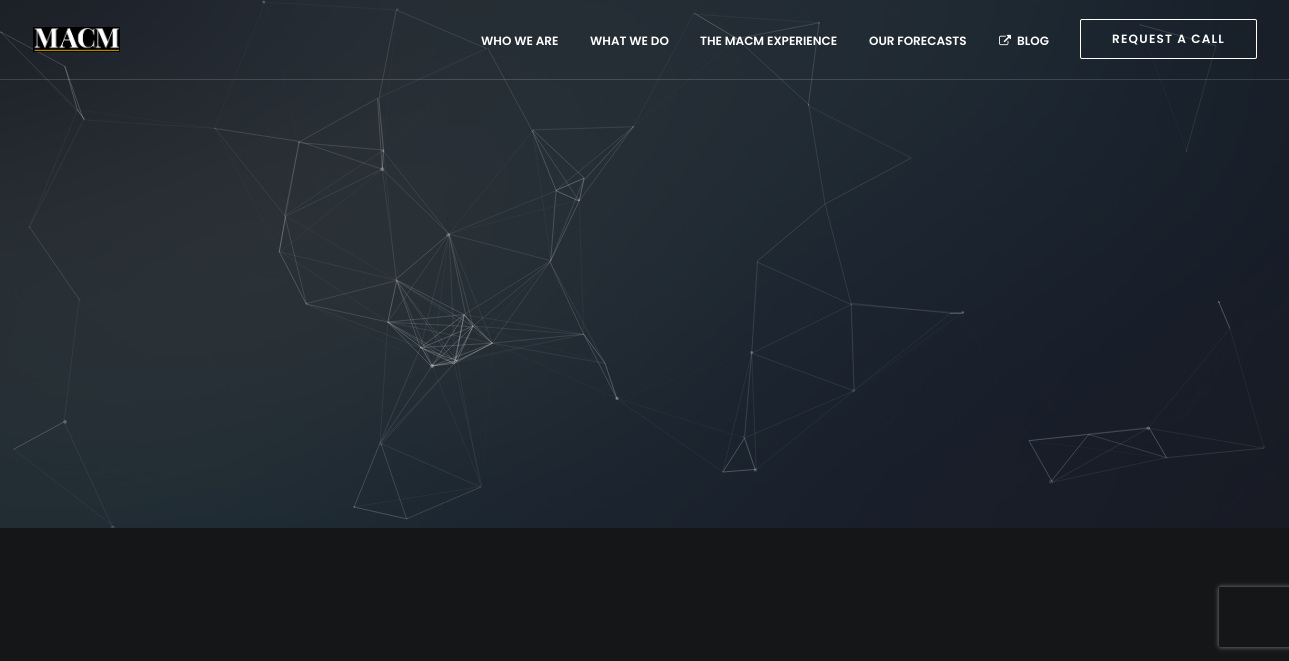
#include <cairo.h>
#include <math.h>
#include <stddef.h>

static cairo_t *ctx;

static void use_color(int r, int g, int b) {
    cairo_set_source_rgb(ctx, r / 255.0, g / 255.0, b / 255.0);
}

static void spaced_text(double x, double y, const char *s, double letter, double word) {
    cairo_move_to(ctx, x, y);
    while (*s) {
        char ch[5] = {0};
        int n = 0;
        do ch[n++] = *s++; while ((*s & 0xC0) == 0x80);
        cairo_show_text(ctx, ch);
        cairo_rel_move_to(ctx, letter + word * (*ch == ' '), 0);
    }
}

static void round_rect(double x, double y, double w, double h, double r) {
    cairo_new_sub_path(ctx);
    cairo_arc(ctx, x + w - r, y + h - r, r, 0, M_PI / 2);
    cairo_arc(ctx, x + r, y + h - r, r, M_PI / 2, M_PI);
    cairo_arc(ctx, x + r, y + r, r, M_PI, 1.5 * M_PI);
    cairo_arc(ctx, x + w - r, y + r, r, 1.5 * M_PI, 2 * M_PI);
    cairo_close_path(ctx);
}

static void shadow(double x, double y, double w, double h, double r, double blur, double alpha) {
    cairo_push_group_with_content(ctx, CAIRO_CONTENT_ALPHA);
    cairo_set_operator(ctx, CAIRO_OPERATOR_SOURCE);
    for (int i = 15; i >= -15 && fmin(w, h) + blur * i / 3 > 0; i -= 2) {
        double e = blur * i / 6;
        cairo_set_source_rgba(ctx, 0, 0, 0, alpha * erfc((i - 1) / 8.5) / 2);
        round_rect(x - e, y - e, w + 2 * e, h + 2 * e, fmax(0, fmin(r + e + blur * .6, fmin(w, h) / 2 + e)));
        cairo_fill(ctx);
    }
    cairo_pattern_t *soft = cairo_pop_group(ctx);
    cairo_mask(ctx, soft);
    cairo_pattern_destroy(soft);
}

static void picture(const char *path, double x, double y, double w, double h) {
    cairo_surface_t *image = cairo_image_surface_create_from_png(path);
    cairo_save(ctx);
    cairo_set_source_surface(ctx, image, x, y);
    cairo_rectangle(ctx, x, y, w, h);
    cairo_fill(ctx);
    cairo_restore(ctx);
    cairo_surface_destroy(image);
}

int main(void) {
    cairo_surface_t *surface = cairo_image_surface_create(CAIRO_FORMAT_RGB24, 1289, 661);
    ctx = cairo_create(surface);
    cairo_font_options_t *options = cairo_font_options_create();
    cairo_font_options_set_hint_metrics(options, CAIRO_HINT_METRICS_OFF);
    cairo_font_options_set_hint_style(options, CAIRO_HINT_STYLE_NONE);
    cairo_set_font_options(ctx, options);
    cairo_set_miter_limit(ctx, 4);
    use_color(255, 255, 255);
    cairo_paint(ctx);
    picture("img1.png", 0, 0, 1289, 528);
    picture("img2.png", 0, 0, 1266, 528);
    use_color(20, 22, 24);
    cairo_rectangle(ctx, 0, 528, 1289, 133);
    cairo_fill(ctx);
    cairo_set_source_rgba(ctx, 1, 1, 1, 0.15);
    cairo_rectangle(ctx, 0, 79, 1289, 1);
    cairo_fill(ctx);
    picture("img3.png", 33, 27, 87, 25);
    cairo_select_font_face(ctx, "Poppins SemiBold", CAIRO_FONT_SLANT_NORMAL, CAIRO_FONT_WEIGHT_NORMAL);
    cairo_set_font_size(ctx, 12);
    use_color(255, 255, 255);
    cairo_move_to(ctx, 481, 45);
    cairo_show_text(ctx, "WHO WE ARE");
    cairo_move_to(ctx, 590, 45);
    cairo_show_text(ctx, "WHAT WE DO");
    cairo_move_to(ctx, 700, 45);
    cairo_show_text(ctx, "THE MACM EXPERIENCE");
    cairo_move_to(ctx, 869, 45);
    cairo_show_text(ctx, "OUR FORECASTS");
    picture("img4.png", 999, 34, 12, 12);
    cairo_move_to(ctx, 1017, 45);
    cairo_show_text(ctx, "BLOG");
    round_rect(1080.5, 19.5, 176, 39, 1.5);
    cairo_set_line_width(ctx, 1);
    cairo_stroke(ctx);
    spaced_text(1112, 43, "REQUEST A CALL", 1.25, 0);
    cairo_save(ctx);
    cairo_set_fill_rule(ctx, CAIRO_FILL_RULE_EVEN_ODD);
    cairo_new_path(ctx);
    cairo_move_to(ctx, 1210, 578);
    cairo_line_to(ctx, 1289, 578);
    cairo_line_to(ctx, 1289, 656);
    cairo_line_to(ctx, 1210, 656);
    cairo_close_path(ctx);
    cairo_move_to(ctx, 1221, 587);
    cairo_line_to(ctx, 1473, 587);
    cairo_curve_to(ctx, 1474, 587, 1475, 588, 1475, 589);
    cairo_line_to(ctx, 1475, 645);
    cairo_curve_to(ctx, 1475, 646, 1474, 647, 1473, 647);
    cairo_line_to(ctx, 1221, 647);
    cairo_curve_to(ctx, 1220, 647, 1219, 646, 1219, 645);
    cairo_line_to(ctx, 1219, 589);
    cairo_curve_to(ctx, 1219, 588, 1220, 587, 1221, 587);
    cairo_close_path(ctx);
    cairo_clip(ctx);
    use_color(128, 128, 128);
    shadow(1219, 587, 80, 60, 2, 2.5, 1);
    cairo_restore(ctx);
    cairo_surface_write_to_png(surface, "result.png");
    cairo_font_options_destroy(options);
    cairo_destroy(ctx);
    cairo_surface_destroy(surface);
    return 0;
}
